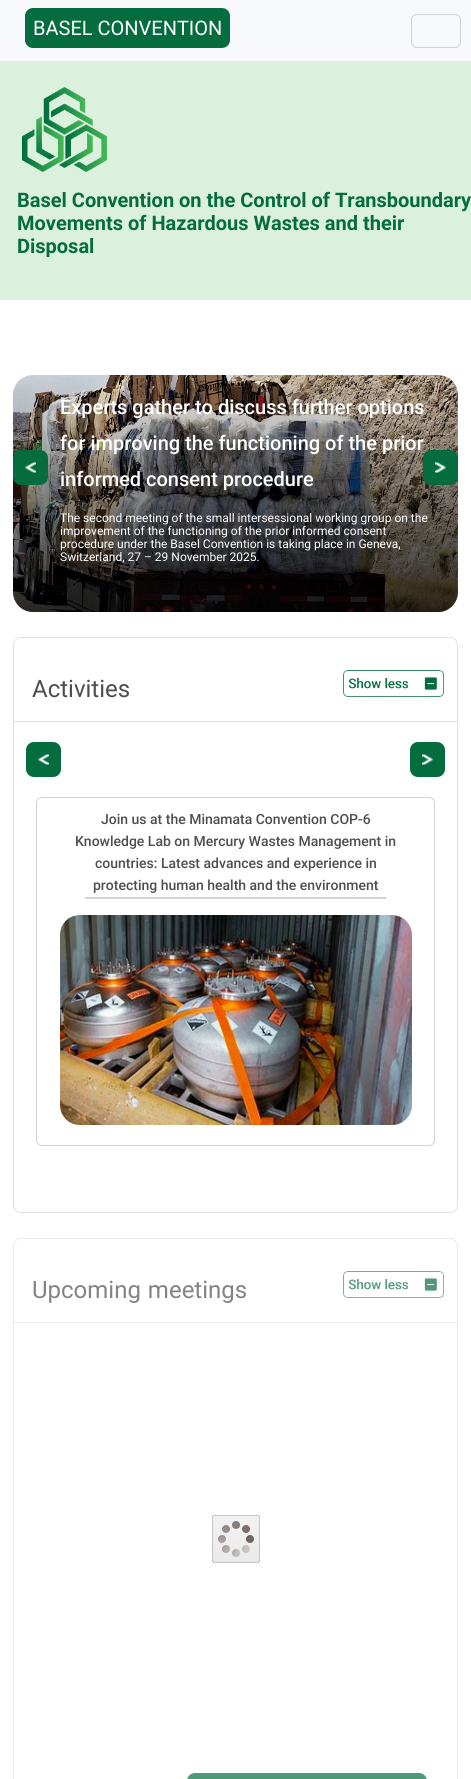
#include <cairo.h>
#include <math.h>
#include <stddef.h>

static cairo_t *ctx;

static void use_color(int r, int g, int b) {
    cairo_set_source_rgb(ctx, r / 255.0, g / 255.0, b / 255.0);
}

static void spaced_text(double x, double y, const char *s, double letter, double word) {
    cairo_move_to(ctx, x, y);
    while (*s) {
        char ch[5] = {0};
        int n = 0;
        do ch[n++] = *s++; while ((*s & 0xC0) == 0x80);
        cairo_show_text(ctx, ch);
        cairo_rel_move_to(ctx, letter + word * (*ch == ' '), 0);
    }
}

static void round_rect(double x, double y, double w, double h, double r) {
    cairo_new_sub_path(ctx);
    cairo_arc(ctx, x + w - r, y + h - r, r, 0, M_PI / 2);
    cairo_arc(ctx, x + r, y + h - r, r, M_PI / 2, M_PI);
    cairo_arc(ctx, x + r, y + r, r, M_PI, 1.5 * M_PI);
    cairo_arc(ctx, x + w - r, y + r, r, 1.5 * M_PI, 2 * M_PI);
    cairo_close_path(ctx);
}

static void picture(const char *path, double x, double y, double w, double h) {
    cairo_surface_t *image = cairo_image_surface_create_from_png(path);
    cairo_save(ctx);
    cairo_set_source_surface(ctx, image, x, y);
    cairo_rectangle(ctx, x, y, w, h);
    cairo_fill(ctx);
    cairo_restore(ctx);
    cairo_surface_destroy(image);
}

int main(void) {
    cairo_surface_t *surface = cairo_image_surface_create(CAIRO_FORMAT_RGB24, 471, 1779);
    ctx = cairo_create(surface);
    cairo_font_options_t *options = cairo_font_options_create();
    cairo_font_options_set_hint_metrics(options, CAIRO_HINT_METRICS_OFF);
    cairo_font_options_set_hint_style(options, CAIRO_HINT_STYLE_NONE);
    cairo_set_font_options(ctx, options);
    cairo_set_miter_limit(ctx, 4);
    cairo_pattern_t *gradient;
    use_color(255, 255, 255);
    cairo_paint(ctx);
    use_color(219, 241, 221);
    cairo_rectangle(ctx, 0, 61, 471, 239);
    cairo_fill(ctx);
    use_color(248, 249, 250);
    cairo_rectangle(ctx, 0, 0, 471, 61);
    cairo_fill(ctx);
    use_color(5, 108, 64);
    round_rect(25, 8, 205, 40, 8);
    cairo_fill(ctx);
    cairo_select_font_face(ctx, "Roboto", CAIRO_FONT_SLANT_NORMAL, CAIRO_FONT_WEIGHT_NORMAL);
    cairo_set_font_size(ctx, 20);
    use_color(255, 255, 255);
    cairo_move_to(ctx, 33, 35);
    cairo_show_text(ctx, "BASEL CONVENTION");
    round_rect(411.5, 14.5, 49, 33, 5.5);
    use_color(211, 212, 213);
    cairo_set_line_width(ctx, 1);
    cairo_stroke(ctx);
    picture("img1.png", 22, 87, 85, 85);
    cairo_select_font_face(ctx, "Roboto", CAIRO_FONT_SLANT_NORMAL, CAIRO_FONT_WEIGHT_BOLD);
    use_color(5, 108, 64);
    cairo_move_to(ctx, 17, 207);
    cairo_show_text(ctx, "Basel Convention on the Control of Transboundary");
    cairo_move_to(ctx, 17, 230);
    cairo_show_text(ctx, "Movements of Hazardous Wastes and their");
    cairo_move_to(ctx, 17, 253);
    cairo_show_text(ctx, "Disposal");
    picture("img2.png", 13, 375, 445, 237);
    gradient = cairo_pattern_create_linear(235, 344, 236, 612);
    cairo_pattern_add_color_stop_rgba(gradient, 0, 0, 0, 0, 0);
    cairo_pattern_add_color_stop_rgba(gradient, 1, 0, 0, 0, 0.8);
    cairo_set_source(ctx, gradient);
    cairo_pattern_destroy(gradient);
    round_rect(13, 375, 445, 237, 20);
    cairo_fill(ctx);
    cairo_select_font_face(ctx, "Roboto Medium", CAIRO_FONT_SLANT_NORMAL, CAIRO_FONT_WEIGHT_NORMAL);
    use_color(255, 255, 255);
    cairo_move_to(ctx, 60, 414);
    cairo_show_text(ctx, "Experts gather to discuss further options");
    cairo_move_to(ctx, 60, 450);
    cairo_show_text(ctx, "for improving the functioning of the prior");
    cairo_move_to(ctx, 60, 486);
    cairo_show_text(ctx, "informed consent procedure");
    cairo_select_font_face(ctx, "Roboto", CAIRO_FONT_SLANT_NORMAL, CAIRO_FONT_WEIGHT_NORMAL);
    cairo_set_font_size(ctx, 12);
    cairo_move_to(ctx, 60, 522);
    cairo_show_text(ctx, "The second meeting of the small intersessional working group on the");
    cairo_move_to(ctx, 60, 535);
    cairo_show_text(ctx, "improvement of the functioning of the prior informed consent");
    cairo_move_to(ctx, 60, 548);
    cairo_show_text(ctx, "procedure under the Basel Convention is taking place in Geneva,");
    cairo_move_to(ctx, 60, 561);
    cairo_show_text(ctx, "Switzerland, 27 – 29 November 2025.");
    use_color(5, 108, 64);
    round_rect(13, 450, 35, 35, 8);
    cairo_fill(ctx);
    picture("img3.png", 25, 462, 11, 11);
    round_rect(423, 450, 35, 35, 8);
    cairo_fill(ctx);
    picture("img4.png", 435, 462, 11, 11);
    round_rect(13.5, 637.5, 444, 575, 7.5);
    use_color(224, 224, 224);
    cairo_stroke(ctx);
    cairo_set_font_size(ctx, 24);
    use_color(78, 78, 78);
    cairo_move_to(ctx, 32, 697);
    cairo_show_text(ctx, "Activities");
    picture("img5.png", 343, 670, 101, 27);
    use_color(224, 224, 224);
    cairo_rectangle(ctx, 14, 721, 443, 1);
    cairo_fill(ctx);
    use_color(5, 108, 64);
    round_rect(26, 742, 35, 35, 8);
    cairo_fill(ctx);
    picture("img6.png", 38, 754, 11, 11);
    round_rect(410, 742, 35, 35, 8);
    cairo_fill(ctx);
    picture("img4.png", 422, 754, 11, 11);
    round_rect(36.5, 797.5, 398, 348, 5.5);
    use_color(210, 210, 210);
    cairo_stroke(ctx);
    cairo_select_font_face(ctx, "Roboto Medium", CAIRO_FONT_SLANT_NORMAL, CAIRO_FONT_WEIGHT_NORMAL);
    cairo_set_font_size(ctx, 14);
    use_color(78, 78, 78);
    cairo_move_to(ctx, 101, 824);
    cairo_show_text(ctx, "Join us at the Minamata Convention COP-6");
    cairo_move_to(ctx, 75, 846);
    cairo_show_text(ctx, "Knowledge Lab on Mercury Wastes Management in");
    cairo_move_to(ctx, 95, 868);
    cairo_show_text(ctx, "countries: Latest advances and experience in");
    cairo_move_to(ctx, 93, 890);
    cairo_show_text(ctx, "protecting human health and the environment");
    use_color(212, 212, 212);
    cairo_rectangle(ctx, 85, 897, 301, 2);
    cairo_fill(ctx);
    picture("img7.png", 60, 915, 352, 210);
    round_rect(13.5, 1238.5, 444, 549, 7.5);
    use_color(233, 233, 233);
    cairo_stroke(ctx);
    cairo_select_font_face(ctx, "Roboto", CAIRO_FONT_SLANT_NORMAL, CAIRO_FONT_WEIGHT_NORMAL);
    cairo_set_font_size(ctx, 24);
    use_color(131, 131, 131);
    spaced_text(32, 1298, "Upcoming meetings", 0, 1);
    picture("img8.png", 343, 1271, 101, 27);
    use_color(233, 233, 233);
    cairo_rectangle(ctx, 14, 1322, 443, 1);
    cairo_fill(ctx);
    picture("img9.png", 212, 1515, 48, 48);
    use_color(80, 152, 121);
    round_rect(187, 1773, 240, 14, 8);
    cairo_fill(ctx);
    cairo_surface_write_to_png(surface, "result.png");
    cairo_font_options_destroy(options);
    cairo_destroy(ctx);
    cairo_surface_destroy(surface);
    return 0;
}
